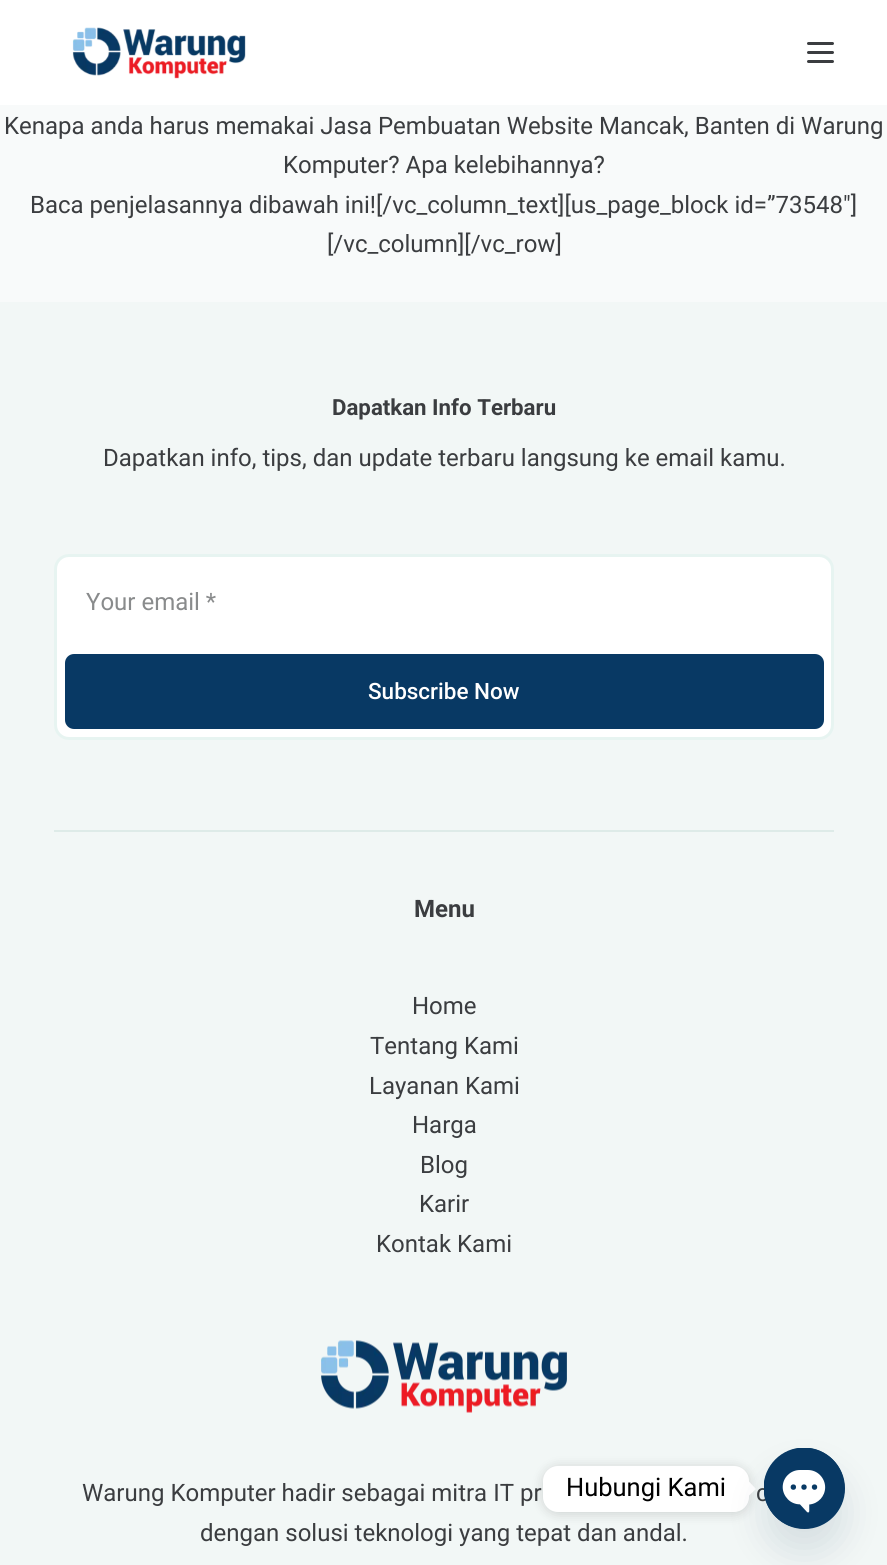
#include <cairo.h>
#include <math.h>
#include <stddef.h>

static cairo_t *ctx;

static void use_color(int r, int g, int b) {
    cairo_set_source_rgb(ctx, r / 255.0, g / 255.0, b / 255.0);
}

static void round_rect(double x, double y, double w, double h, double r) {
    cairo_new_sub_path(ctx);
    cairo_arc(ctx, x + w - r, y + h - r, r, 0, M_PI / 2);
    cairo_arc(ctx, x + r, y + h - r, r, M_PI / 2, M_PI);
    cairo_arc(ctx, x + r, y + r, r, M_PI, 1.5 * M_PI);
    cairo_arc(ctx, x + w - r, y + r, r, 1.5 * M_PI, 2 * M_PI);
    cairo_close_path(ctx);
}

static void shadow(double x, double y, double w, double h, double r, double blur, double alpha) {
    cairo_push_group_with_content(ctx, CAIRO_CONTENT_ALPHA);
    cairo_set_operator(ctx, CAIRO_OPERATOR_SOURCE);
    for (int i = 15; i >= -15 && fmin(w, h) + blur * i / 3 > 0; i -= 2) {
        double e = blur * i / 6;
        cairo_set_source_rgba(ctx, 0, 0, 0, alpha * erfc((i - 1) / 8.5) / 2);
        round_rect(x - e, y - e, w + 2 * e, h + 2 * e, fmax(0, fmin(r + e + blur * .6, fmin(w, h) / 2 + e)));
        cairo_fill(ctx);
    }
    cairo_pattern_t *soft = cairo_pop_group(ctx);
    cairo_mask(ctx, soft);
    cairo_pattern_destroy(soft);
}

static void picture(const char *path, double x, double y, double w, double h) {
    cairo_surface_t *image = cairo_image_surface_create_from_png(path);
    cairo_save(ctx);
    cairo_set_source_surface(ctx, image, x, y);
    cairo_rectangle(ctx, x, y, w, h);
    cairo_fill(ctx);
    cairo_restore(ctx);
    cairo_surface_destroy(image);
}

int main(void) {
    cairo_surface_t *surface = cairo_image_surface_create(CAIRO_FORMAT_RGB24, 887, 1565);
    ctx = cairo_create(surface);
    cairo_font_options_t *options = cairo_font_options_create();
    cairo_font_options_set_hint_metrics(options, CAIRO_HINT_METRICS_OFF);
    cairo_font_options_set_hint_style(options, CAIRO_HINT_STYLE_NONE);
    cairo_set_font_options(ctx, options);
    cairo_set_miter_limit(ctx, 4);
    use_color(248, 250, 250);
    cairo_paint(ctx);
    use_color(255, 255, 255);
    cairo_rectangle(ctx, 0, 0, 887, 105);
    cairo_fill(ctx);
    picture("img1.png", 72, 27, 174, 52);
    use_color(59, 61, 64);
    round_rect(807, 42, 27, 3, 1.5);
    cairo_fill(ctx);
    round_rect(807, 51, 27, 3, 1.5);
    cairo_fill(ctx);
    round_rect(807, 60, 27, 3, 1.5);
    cairo_fill(ctx);
    cairo_select_font_face(ctx, "Roboto", CAIRO_FONT_SLANT_NORMAL, CAIRO_FONT_WEIGHT_NORMAL);
    cairo_set_font_size(ctx, 24);
    cairo_move_to(ctx, 4, 134);
    cairo_show_text(ctx, "Kenapa anda harus memakai Jasa Pembuatan Website Mancak, Banten di Warung");
    cairo_move_to(ctx, 283, 173);
    cairo_show_text(ctx, "Komputer? Apa kelebihannya?");
    cairo_move_to(ctx, 30, 213);
    cairo_show_text(ctx, "Baca penjelasannya dibawah ini![/vc_column_text][us_page_block id=”73548″]");
    cairo_move_to(ctx, 327, 252);
    cairo_show_text(ctx, "[/vc_column][/vc_row]");
    use_color(242, 247, 246);
    cairo_rectangle(ctx, 0, 302, 887, 1263);
    cairo_fill(ctx);
    use_color(222, 235, 232);
    cairo_rectangle(ctx, 54, 830, 780, 2);
    cairo_fill(ctx);
    cairo_select_font_face(ctx, "Roboto", CAIRO_FONT_SLANT_NORMAL, CAIRO_FONT_WEIGHT_BOLD);
    cairo_set_font_size(ctx, 22.25);
    use_color(59, 61, 64);
    cairo_move_to(ctx, 332, 415);
    cairo_show_text(ctx, "Dapatkan Info Terbaru");
    cairo_select_font_face(ctx, "Roboto", CAIRO_FONT_SLANT_NORMAL, CAIRO_FONT_WEIGHT_NORMAL);
    cairo_set_font_size(ctx, 24);
    cairo_move_to(ctx, 103, 466);
    cairo_show_text(ctx, "Dapatkan info, tips, dan update terbaru langsung ke email kamu.");
    use_color(255, 255, 255);
    round_rect(55.5, 555.5, 777, 183, 13.5);
    cairo_fill_preserve(ctx);
    use_color(231, 244, 241);
    cairo_set_line_width(ctx, 3);
    cairo_stroke(ctx);
    use_color(137, 139, 140);
    cairo_move_to(ctx, 86, 610);
    cairo_show_text(ctx, "Your email *");
    use_color(8, 57, 100);
    round_rect(65, 654, 759, 75, 9);
    cairo_fill(ctx);
    cairo_select_font_face(ctx, "Roboto Medium", CAIRO_FONT_SLANT_NORMAL, CAIRO_FONT_WEIGHT_NORMAL);
    cairo_set_font_size(ctx, 22.5);
    use_color(255, 255, 255);
    cairo_move_to(ctx, 368, 699);
    cairo_show_text(ctx, "Subscribe Now");
    cairo_select_font_face(ctx, "Roboto", CAIRO_FONT_SLANT_NORMAL, CAIRO_FONT_WEIGHT_BOLD);
    cairo_set_font_size(ctx, 24);
    use_color(59, 61, 64);
    cairo_move_to(ctx, 414, 917);
    cairo_show_text(ctx, "Menu");
    cairo_select_font_face(ctx, "Roboto", CAIRO_FONT_SLANT_NORMAL, CAIRO_FONT_WEIGHT_NORMAL);
    cairo_move_to(ctx, 412, 1014);
    cairo_show_text(ctx, "Home");
    cairo_move_to(ctx, 370, 1054);
    cairo_show_text(ctx, "Tentang Kami");
    cairo_move_to(ctx, 369, 1094);
    cairo_show_text(ctx, "Layanan Kami");
    cairo_move_to(ctx, 412, 1133);
    cairo_show_text(ctx, "Harga");
    cairo_move_to(ctx, 420, 1173);
    cairo_show_text(ctx, "Blog");
    cairo_move_to(ctx, 419, 1212);
    cairo_show_text(ctx, "Karir");
    cairo_move_to(ctx, 376, 1252);
    cairo_show_text(ctx, "Kontak Kami");
    picture("img2.png", 321, 1340, 246, 73);
    cairo_move_to(ctx, 82, 1501);
    cairo_show_text(ctx, "Warung Komputer hadir sebagai mitra IT pr");
    cairo_move_to(ctx, 756, 1501);
    cairo_show_text(ctx, "c");
    cairo_move_to(ctx, 200, 1541);
    cairo_show_text(ctx, "dengan solusi teknologi yang tepat dan andal.");
    use_color(0, 0, 0);
    shadow(543, 1467, 206, 47, 15, 6, 0.15);
    use_color(255, 255, 255);
    round_rect(543, 1466, 206, 46, 15);
    cairo_fill(ctx);
    cairo_set_font_size(ctx, 25.5);
    use_color(0, 0, 0);
    cairo_move_to(ctx, 566, 1496);
    cairo_show_text(ctx, "Hubungi Kami");
    use_color(255, 255, 255);
    cairo_new_path(ctx);
    cairo_move_to(ctx, 748.5, 1496);
    cairo_line_to(ctx, 748.5, 1481);
    cairo_line_to(ctx, 756, 1489);
    cairo_close_path(ctx);
    cairo_fill(ctx);
    use_color(73, 104, 126);
    shadow(764, 1472, 81, 81, 40.5, 18, 0.16);
    use_color(8, 57, 100);
    cairo_arc(ctx, 804.5, 1488.5, 40.5, 0, 2 * M_PI);
    cairo_fill(ctx);
    picture("img3.png", 764, 1448, 81, 81);
    cairo_surface_write_to_png(surface, "result.png");
    cairo_font_options_destroy(options);
    cairo_destroy(ctx);
    cairo_surface_destroy(surface);
    return 0;
}
